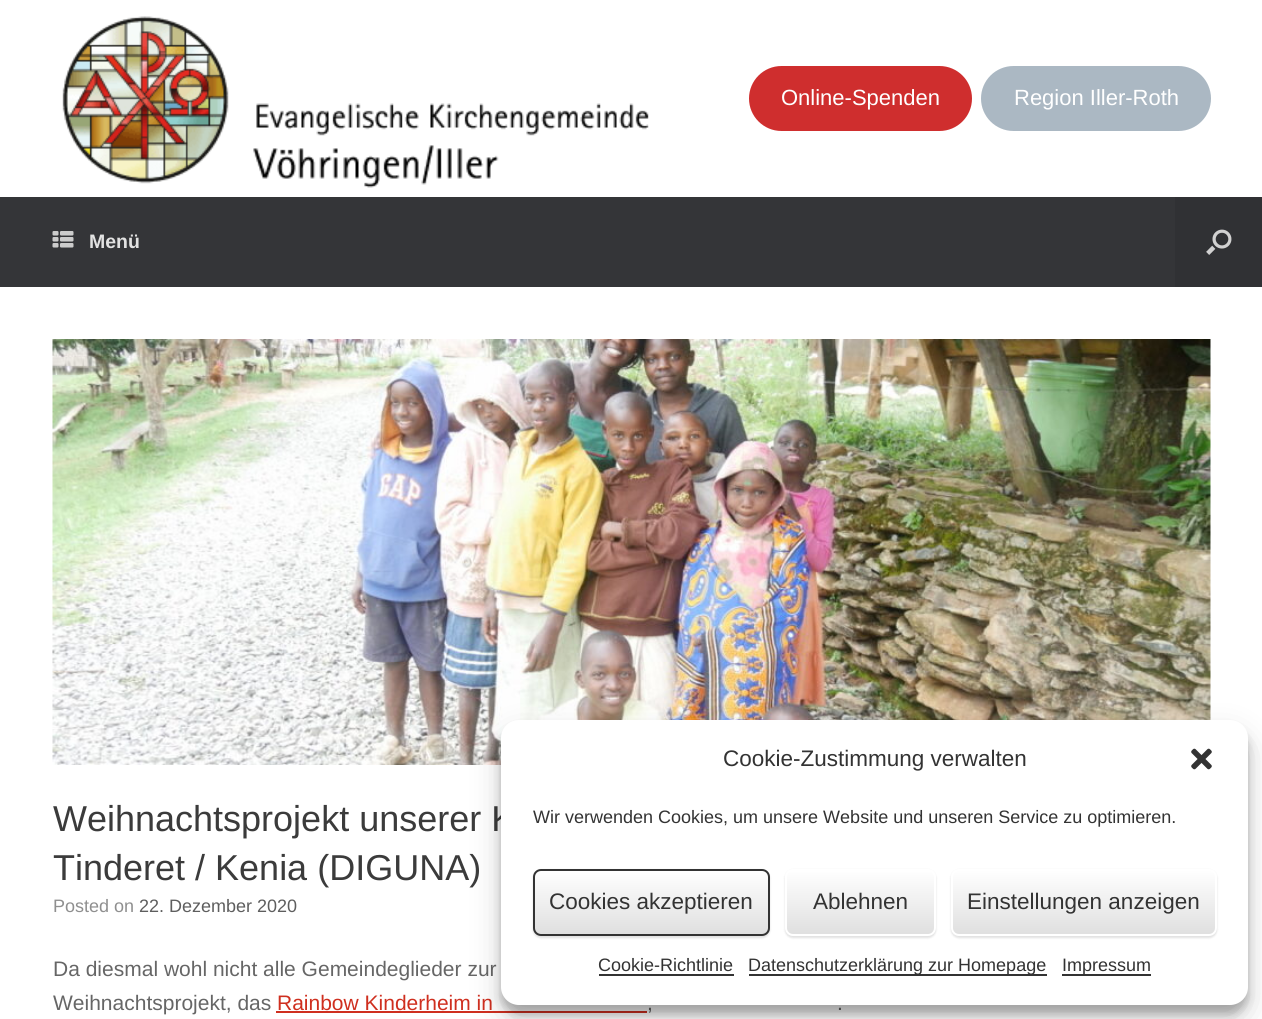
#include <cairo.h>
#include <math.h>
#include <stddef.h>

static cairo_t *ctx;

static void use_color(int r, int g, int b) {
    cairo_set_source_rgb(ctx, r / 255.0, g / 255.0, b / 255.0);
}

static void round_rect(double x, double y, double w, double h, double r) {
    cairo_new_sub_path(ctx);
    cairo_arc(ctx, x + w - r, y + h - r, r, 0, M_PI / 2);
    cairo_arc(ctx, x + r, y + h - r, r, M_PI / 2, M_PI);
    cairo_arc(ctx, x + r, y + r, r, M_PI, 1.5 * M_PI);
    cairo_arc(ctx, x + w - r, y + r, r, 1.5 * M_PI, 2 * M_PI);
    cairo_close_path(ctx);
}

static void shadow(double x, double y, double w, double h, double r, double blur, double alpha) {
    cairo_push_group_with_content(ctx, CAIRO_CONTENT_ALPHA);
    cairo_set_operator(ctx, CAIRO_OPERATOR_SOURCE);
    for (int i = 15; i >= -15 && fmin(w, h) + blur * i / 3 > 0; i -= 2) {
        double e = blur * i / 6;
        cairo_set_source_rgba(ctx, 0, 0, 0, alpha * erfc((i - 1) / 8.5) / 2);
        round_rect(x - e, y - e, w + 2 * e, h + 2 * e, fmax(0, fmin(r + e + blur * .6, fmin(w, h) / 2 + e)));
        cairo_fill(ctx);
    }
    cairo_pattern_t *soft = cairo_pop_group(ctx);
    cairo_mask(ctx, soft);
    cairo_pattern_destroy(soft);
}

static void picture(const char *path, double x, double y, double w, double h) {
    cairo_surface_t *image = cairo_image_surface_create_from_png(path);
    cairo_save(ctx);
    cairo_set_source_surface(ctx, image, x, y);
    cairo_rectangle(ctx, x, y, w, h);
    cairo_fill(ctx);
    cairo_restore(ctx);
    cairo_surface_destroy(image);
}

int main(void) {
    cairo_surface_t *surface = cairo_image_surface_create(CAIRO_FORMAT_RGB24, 1262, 1019);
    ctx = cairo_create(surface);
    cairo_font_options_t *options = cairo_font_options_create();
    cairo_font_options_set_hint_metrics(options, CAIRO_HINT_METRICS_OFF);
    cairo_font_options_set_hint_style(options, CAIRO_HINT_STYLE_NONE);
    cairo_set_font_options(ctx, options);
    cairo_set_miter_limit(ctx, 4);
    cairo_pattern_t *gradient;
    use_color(255, 255, 255);
    cairo_paint(ctx);
    picture("img1.png", 62, 16, 587, 172);
    use_color(207, 46, 46);
    round_rect(749, 66, 223, 65, 32.5);
    cairo_fill(ctx);
    cairo_select_font_face(ctx, "Liberation Sans", CAIRO_FONT_SLANT_NORMAL, CAIRO_FONT_WEIGHT_NORMAL);
    cairo_set_font_size(ctx, 22);
    use_color(255, 255, 255);
    cairo_move_to(ctx, 781, 105);
    cairo_show_text(ctx, "Online-Spenden");
    use_color(171, 184, 195);
    round_rect(981, 66, 230, 65, 32.5);
    cairo_fill(ctx);
    use_color(255, 255, 255);
    cairo_move_to(ctx, 1014, 105);
    cairo_show_text(ctx, "Region Iller-Roth");
    use_color(52, 53, 56);
    cairo_rectangle(ctx, 0, 197, 1175, 90);
    cairo_fill(ctx);
    picture("img2.png", 52, 231, 22, 17);
    cairo_select_font_face(ctx, "Liberation Sans", CAIRO_FONT_SLANT_NORMAL, CAIRO_FONT_WEIGHT_BOLD);
    cairo_set_font_size(ctx, 19.5);
    use_color(226, 226, 226);
    cairo_move_to(ctx, 89, 248);
    cairo_show_text(ctx, "Menü");
    use_color(48, 49, 52);
    cairo_rectangle(ctx, 1175, 197, 87, 90);
    cairo_fill(ctx);
    picture("img3.png", 1206, 229, 26, 26);
    picture("img4.png", 52, 339, 1159, 426);
    cairo_select_font_face(ctx, "Liberation Sans", CAIRO_FONT_SLANT_NORMAL, CAIRO_FONT_WEIGHT_NORMAL);
    cairo_set_font_size(ctx, 36);
    use_color(59, 59, 59);
    cairo_move_to(ctx, 53, 831);
    cairo_show_text(ctx, "Weihnachtsprojekt unserer K");
    cairo_move_to(ctx, 53, 880);
    cairo_show_text(ctx, "Tinderet / Kenia (DIGUNA)");
    cairo_set_font_size(ctx, 18);
    use_color(143, 143, 143);
    cairo_move_to(ctx, 53, 912);
    cairo_show_text(ctx, "Posted on");
    use_color(94, 94, 94);
    cairo_move_to(ctx, 139, 912);
    cairo_show_text(ctx, "22. Dezember 2020");
    cairo_set_font_size(ctx, 21);
    use_color(102, 102, 102);
    cairo_move_to(ctx, 53, 976);
    cairo_show_text(ctx, "Da diesmal wohl nicht alle Gemeindeglieder zur");
    cairo_move_to(ctx, 53, 1010);
    cairo_show_text(ctx, "Weihnachtsprojekt, das");
    use_color(207, 47, 31);
    cairo_move_to(ctx, 277, 1010);
    cairo_show_text(ctx, "Rainbow Kinderheim in");
    cairo_rectangle(ctx, 276, 1011, 371, 2);
    cairo_fill(ctx);
    use_color(102, 102, 102);
    cairo_move_to(ctx, 647, 1010);
    cairo_show_text(ctx, ",");
    cairo_move_to(ctx, 837, 1010);
    cairo_show_text(ctx, ".");
    use_color(0, 0, 0);
    shadow(501, 729, 747, 285, 18, 4.5, 0.23);
    shadow(501, 735, 747, 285, 18, 15, 0.19);
    use_color(255, 255, 255);
    round_rect(502, 721, 745, 283, 17);
    cairo_fill_preserve(ctx);
    cairo_stroke(ctx);
    cairo_set_font_size(ctx, 22.5);
    use_color(51, 51, 51);
    cairo_move_to(ctx, 723, 766);
    cairo_show_text(ctx, "Cookie-Zustimmung verwalten");
    picture("img5.png", 1191, 748, 21, 22);
    cairo_set_font_size(ctx, 18);
    cairo_move_to(ctx, 533, 823);
    cairo_show_text(ctx, "Wir verwenden Cookies, um unsere Website und unseren Service zu optimieren.");
    use_color(0, 0, 0);
    shadow(533, 870, 237, 68, 8, 1, 0.12);
    cairo_save(ctx);
    round_rect(533, 869, 237, 67, 8);
    cairo_clip(ctx);
    gradient = cairo_pattern_create_linear(534, 935, 534, 870);
    cairo_pattern_add_color_stop_rgba(gradient, 0, 0.875, 0.875, 0.875, 1);
    cairo_pattern_add_color_stop_rgba(gradient, 1, 1, 1, 1, 1);
    cairo_set_source(ctx, gradient);
    cairo_pattern_destroy(gradient);
    cairo_rectangle(ctx, 533, 870, 237, 65);
    cairo_fill(ctx);
    cairo_restore(ctx);
    round_rect(534, 870, 235, 65, 7);
    use_color(51, 51, 51);
    cairo_stroke(ctx);
    cairo_set_font_size(ctx, 22.5);
    cairo_move_to(ctx, 549, 909);
    cairo_show_text(ctx, "Cookies akzeptieren");
    use_color(0, 0, 0);
    shadow(785, 870, 151, 68, 8, 1, 0.12);
    cairo_save(ctx);
    round_rect(785, 869, 151, 67, 8);
    cairo_clip(ctx);
    gradient = cairo_pattern_create_linear(786, 935, 786, 870);
    cairo_pattern_add_color_stop_rgba(gradient, 0, 0.875, 0.875, 0.875, 1);
    cairo_pattern_add_color_stop_rgba(gradient, 1, 1, 1, 1, 1);
    cairo_set_source(ctx, gradient);
    cairo_pattern_destroy(gradient);
    cairo_rectangle(ctx, 785, 870, 151, 65);
    cairo_fill(ctx);
    cairo_restore(ctx);
    cairo_set_source_rgba(ctx, 1, 1, 1, 0.5);
    cairo_new_path(ctx);
    cairo_move_to(ctx, 792, 872);
    cairo_line_to(ctx, 928, 872);
    cairo_curve_to(ctx, 932, 872, 934, 874, 934, 878);
    cairo_line_to(ctx, 934, 930);
    cairo_curve_to(ctx, 934, 931, 934, 932, 933, 933);
    cairo_curve_to(ctx, 934, 932, 935, 931, 935, 929);
    cairo_line_to(ctx, 935, 876);
    cairo_curve_to(ctx, 935, 873, 932, 870, 929, 870);
    cairo_line_to(ctx, 792, 870);
    cairo_curve_to(ctx, 789, 870, 786, 873, 786, 876);
    cairo_line_to(ctx, 786, 878);
    cairo_curve_to(ctx, 786, 874, 789, 872, 792, 872);
    cairo_close_path(ctx);
    cairo_fill(ctx);
    round_rect(786, 870, 149, 65, 7);
    use_color(255, 255, 255);
    cairo_stroke(ctx);
    use_color(51, 51, 51);
    cairo_move_to(ctx, 813, 909);
    cairo_show_text(ctx, "Ablehnen");
    use_color(0, 0, 0);
    shadow(951, 870, 266, 68, 8, 1, 0.12);
    cairo_save(ctx);
    round_rect(951, 869, 266, 67, 8);
    cairo_clip(ctx);
    gradient = cairo_pattern_create_linear(953, 935, 953, 870);
    cairo_pattern_add_color_stop_rgba(gradient, 0, 0.875, 0.875, 0.875, 1);
    cairo_pattern_add_color_stop_rgba(gradient, 1, 1, 1, 1, 1);
    cairo_set_source(ctx, gradient);
    cairo_pattern_destroy(gradient);
    cairo_rectangle(ctx, 951, 870, 266, 65);
    cairo_fill(ctx);
    cairo_restore(ctx);
    round_rect(952, 870, 264, 65, 7);
    use_color(255, 255, 255);
    cairo_stroke(ctx);
    use_color(51, 51, 51);
    cairo_move_to(ctx, 967, 909);
    cairo_show_text(ctx, "Einstellungen anzeigen");
    cairo_set_font_size(ctx, 18);
    cairo_move_to(ctx, 598, 971);
    cairo_show_text(ctx, "Cookie-Richtlinie");
    cairo_rectangle(ctx, 599, 974, 135, 2);
    cairo_fill(ctx);
    cairo_rectangle(ctx, 749, 974, 298, 2);
    cairo_fill(ctx);
    cairo_move_to(ctx, 748, 971);
    cairo_show_text(ctx, "Datenschutzerklärung zur Homepage");
    cairo_rectangle(ctx, 1062, 974, 89, 2);
    cairo_fill(ctx);
    cairo_move_to(ctx, 1062, 971);
    cairo_show_text(ctx, "Impressum");
    cairo_surface_write_to_png(surface, "result.png");
    cairo_font_options_destroy(options);
    cairo_destroy(ctx);
    cairo_surface_destroy(surface);
    return 0;
}
